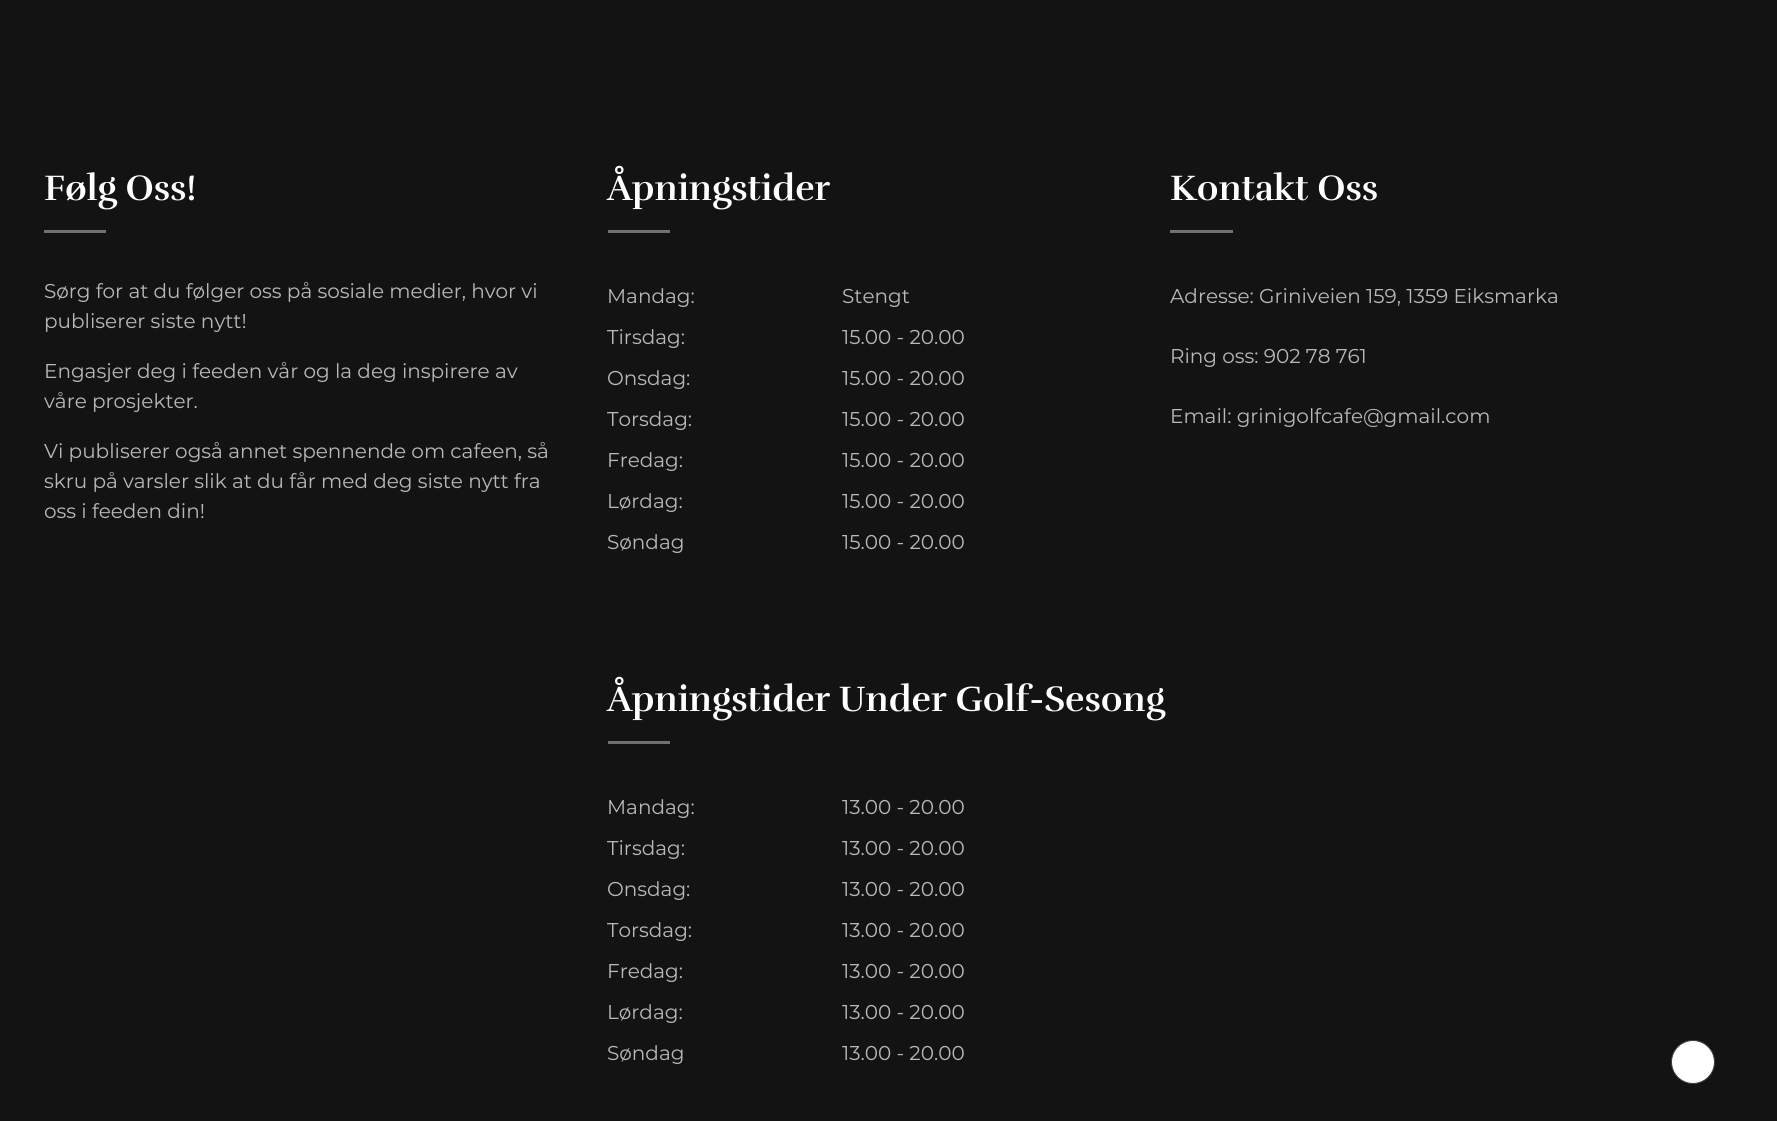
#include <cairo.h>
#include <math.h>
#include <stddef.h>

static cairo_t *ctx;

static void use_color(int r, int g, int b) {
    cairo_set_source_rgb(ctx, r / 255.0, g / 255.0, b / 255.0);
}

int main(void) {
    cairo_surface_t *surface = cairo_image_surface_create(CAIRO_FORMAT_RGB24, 1777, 1121);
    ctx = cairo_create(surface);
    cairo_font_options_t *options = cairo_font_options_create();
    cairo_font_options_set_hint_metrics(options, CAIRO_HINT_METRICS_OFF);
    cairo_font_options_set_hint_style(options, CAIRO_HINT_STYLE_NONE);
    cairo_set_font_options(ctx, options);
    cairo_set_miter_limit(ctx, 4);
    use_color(19, 19, 19);
    cairo_paint(ctx);
    cairo_select_font_face(ctx, "Rufina", CAIRO_FONT_SLANT_NORMAL, CAIRO_FONT_WEIGHT_BOLD);
    cairo_set_font_size(ctx, 36.25);
    use_color(255, 255, 255);
    cairo_move_to(ctx, 44, 200);
    cairo_show_text(ctx, "Følg Oss!");
    use_color(113, 113, 113);
    cairo_rectangle(ctx, 44, 230, 62, 3);
    cairo_fill(ctx);
    cairo_select_font_face(ctx, "Montserrat", CAIRO_FONT_SLANT_NORMAL, CAIRO_FONT_WEIGHT_NORMAL);
    cairo_set_font_size(ctx, 20);
    use_color(184, 184, 184);
    cairo_move_to(ctx, 44, 298);
    cairo_show_text(ctx, "Sørg for at du følger oss på sosiale medier, hvor vi");
    cairo_move_to(ctx, 44, 328);
    cairo_show_text(ctx, "publiserer siste nytt!");
    cairo_move_to(ctx, 44, 378);
    cairo_show_text(ctx, "Engasjer deg i feeden vår og la deg inspirere av");
    cairo_move_to(ctx, 44, 408);
    cairo_show_text(ctx, "våre prosjekter.");
    cairo_move_to(ctx, 44, 458);
    cairo_show_text(ctx, "Vi publiserer også annet spennende om cafeen, så");
    cairo_move_to(ctx, 44, 488);
    cairo_show_text(ctx, "skru på varsler slik at du får med deg siste nytt fra");
    cairo_move_to(ctx, 44, 518);
    cairo_show_text(ctx, "oss i feeden din!");
    cairo_select_font_face(ctx, "Rufina", CAIRO_FONT_SLANT_NORMAL, CAIRO_FONT_WEIGHT_BOLD);
    cairo_set_font_size(ctx, 36.25);
    use_color(255, 255, 255);
    cairo_move_to(ctx, 607, 200);
    cairo_show_text(ctx, "Åpningstider");
    use_color(113, 113, 113);
    cairo_rectangle(ctx, 608, 230, 62, 3);
    cairo_fill(ctx);
    cairo_select_font_face(ctx, "Montserrat", CAIRO_FONT_SLANT_NORMAL, CAIRO_FONT_WEIGHT_NORMAL);
    cairo_set_font_size(ctx, 20);
    use_color(184, 184, 184);
    cairo_move_to(ctx, 607, 303);
    cairo_show_text(ctx, "Mandag:");
    cairo_move_to(ctx, 842, 303);
    cairo_show_text(ctx, "Stengt");
    cairo_move_to(ctx, 607, 344);
    cairo_show_text(ctx, "Tirsdag:");
    cairo_move_to(ctx, 842, 344);
    cairo_show_text(ctx, "15.00 - 20.00");
    cairo_move_to(ctx, 607, 385);
    cairo_show_text(ctx, "Onsdag:");
    cairo_move_to(ctx, 842, 385);
    cairo_show_text(ctx, "15.00 - 20.00");
    cairo_move_to(ctx, 607, 426);
    cairo_show_text(ctx, "Torsdag:");
    cairo_move_to(ctx, 842, 426);
    cairo_show_text(ctx, "15.00 - 20.00");
    cairo_move_to(ctx, 607, 467);
    cairo_show_text(ctx, "Fredag:");
    cairo_move_to(ctx, 842, 467);
    cairo_show_text(ctx, "15.00 - 20.00");
    cairo_move_to(ctx, 607, 508);
    cairo_show_text(ctx, "Lørdag:");
    cairo_move_to(ctx, 842, 508);
    cairo_show_text(ctx, "15.00 - 20.00");
    cairo_move_to(ctx, 607, 549);
    cairo_show_text(ctx, "Søndag");
    cairo_move_to(ctx, 842, 549);
    cairo_show_text(ctx, "15.00 - 20.00");
    cairo_select_font_face(ctx, "Rufina", CAIRO_FONT_SLANT_NORMAL, CAIRO_FONT_WEIGHT_BOLD);
    cairo_set_font_size(ctx, 36.25);
    use_color(255, 255, 255);
    cairo_move_to(ctx, 607, 711);
    cairo_show_text(ctx, "Åpningstider Under Golf-Sesong");
    use_color(113, 113, 113);
    cairo_rectangle(ctx, 608, 741, 62, 3);
    cairo_fill(ctx);
    cairo_select_font_face(ctx, "Montserrat", CAIRO_FONT_SLANT_NORMAL, CAIRO_FONT_WEIGHT_NORMAL);
    cairo_set_font_size(ctx, 20);
    use_color(184, 184, 184);
    cairo_move_to(ctx, 607, 814);
    cairo_show_text(ctx, "Mandag:");
    cairo_move_to(ctx, 842, 814);
    cairo_show_text(ctx, "13.00 - 20.00");
    cairo_move_to(ctx, 607, 855);
    cairo_show_text(ctx, "Tirsdag:");
    cairo_move_to(ctx, 842, 855);
    cairo_show_text(ctx, "13.00 - 20.00");
    cairo_move_to(ctx, 607, 896);
    cairo_show_text(ctx, "Onsdag:");
    cairo_move_to(ctx, 842, 896);
    cairo_show_text(ctx, "13.00 - 20.00");
    cairo_move_to(ctx, 607, 937);
    cairo_show_text(ctx, "Torsdag:");
    cairo_move_to(ctx, 842, 937);
    cairo_show_text(ctx, "13.00 - 20.00");
    cairo_move_to(ctx, 607, 978);
    cairo_show_text(ctx, "Fredag:");
    cairo_move_to(ctx, 842, 978);
    cairo_show_text(ctx, "13.00 - 20.00");
    cairo_move_to(ctx, 607, 1019);
    cairo_show_text(ctx, "Lørdag:");
    cairo_move_to(ctx, 842, 1019);
    cairo_show_text(ctx, "13.00 - 20.00");
    cairo_move_to(ctx, 607, 1060);
    cairo_show_text(ctx, "Søndag");
    cairo_move_to(ctx, 842, 1060);
    cairo_show_text(ctx, "13.00 - 20.00");
    cairo_select_font_face(ctx, "Rufina", CAIRO_FONT_SLANT_NORMAL, CAIRO_FONT_WEIGHT_BOLD);
    cairo_set_font_size(ctx, 36.25);
    use_color(255, 255, 255);
    cairo_move_to(ctx, 1170, 200);
    cairo_show_text(ctx, "Kontakt Oss");
    use_color(113, 113, 113);
    cairo_rectangle(ctx, 1170, 230, 63, 3);
    cairo_fill(ctx);
    cairo_select_font_face(ctx, "Montserrat", CAIRO_FONT_SLANT_NORMAL, CAIRO_FONT_WEIGHT_NORMAL);
    cairo_set_font_size(ctx, 20);
    use_color(184, 184, 184);
    cairo_move_to(ctx, 1170, 303);
    cairo_show_text(ctx, "Adresse: Griniveien 159, 1359 Eiksmarka");
    cairo_move_to(ctx, 1170, 363);
    cairo_show_text(ctx, "Ring oss: 902 78 761");
    cairo_move_to(ctx, 1170, 423);
    cairo_show_text(ctx, "Email: grinigolfcafe@gmail.com");
    use_color(255, 255, 255);
    cairo_new_path(ctx);
    cairo_arc(ctx, 1693, 1062, 21.5, 0, 2 * M_PI);
    cairo_fill_preserve(ctx);
    use_color(61, 61, 61);
    cairo_set_line_width(ctx, 1);
    cairo_stroke(ctx);
    cairo_surface_write_to_png(surface, "result.png");
    cairo_font_options_destroy(options);
    cairo_destroy(ctx);
    cairo_surface_destroy(surface);
    return 0;
}
